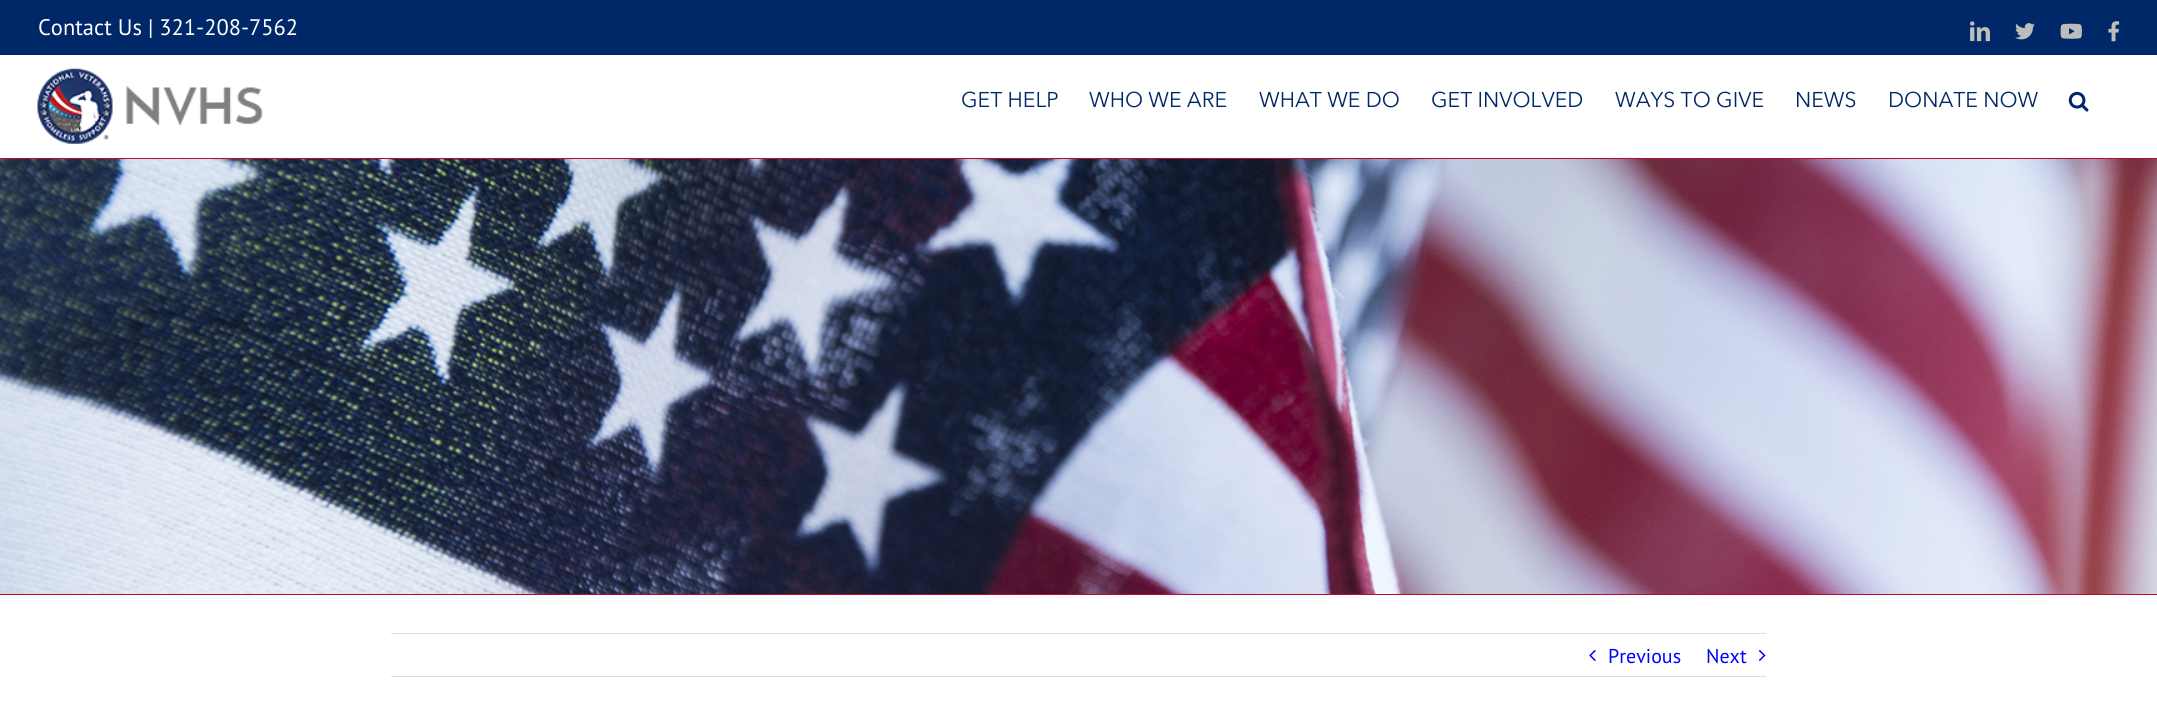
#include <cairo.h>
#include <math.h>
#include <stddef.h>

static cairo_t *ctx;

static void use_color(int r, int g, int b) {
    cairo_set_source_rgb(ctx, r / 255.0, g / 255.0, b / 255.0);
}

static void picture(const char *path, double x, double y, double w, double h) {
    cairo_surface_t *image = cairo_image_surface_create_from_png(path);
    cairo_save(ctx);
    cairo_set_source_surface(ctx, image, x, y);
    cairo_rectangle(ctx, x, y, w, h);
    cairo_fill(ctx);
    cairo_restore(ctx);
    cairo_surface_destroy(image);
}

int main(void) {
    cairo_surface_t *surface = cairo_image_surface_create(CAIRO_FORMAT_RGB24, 2157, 724);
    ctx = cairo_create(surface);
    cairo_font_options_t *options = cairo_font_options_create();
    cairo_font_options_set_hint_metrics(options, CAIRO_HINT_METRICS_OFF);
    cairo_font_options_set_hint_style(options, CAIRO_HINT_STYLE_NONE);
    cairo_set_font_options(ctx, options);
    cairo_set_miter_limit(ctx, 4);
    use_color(255, 255, 255);
    cairo_paint(ctx);
    use_color(0, 40, 104);
    cairo_rectangle(ctx, 0, 0, 2157, 55);
    cairo_fill(ctx);
    cairo_select_font_face(ctx, "PT Sans", CAIRO_FONT_SLANT_NORMAL, CAIRO_FONT_WEIGHT_NORMAL);
    cairo_set_font_size(ctx, 22.5);
    use_color(255, 255, 255);
    cairo_move_to(ctx, 38, 35);
    cairo_show_text(ctx, "Contact Us | 321-208-7562");
    picture("img1.png", 1970, 21, 20, 21);
    picture("img2.png", 2015, 23, 20, 17);
    picture("img3.png", 2060, 23, 22, 16);
    picture("img4.png", 2108, 21, 12, 21);
    picture("img5.png", 37, 68, 226, 76);
    cairo_select_font_face(ctx, "Avenir Next", CAIRO_FONT_SLANT_NORMAL, CAIRO_FONT_WEIGHT_NORMAL);
    cairo_set_font_size(ctx, 21.25);
    use_color(0, 40, 104);
    cairo_move_to(ctx, 961, 107);
    cairo_show_text(ctx, "GET HELP");
    cairo_move_to(ctx, 1089, 107);
    cairo_show_text(ctx, "WHO WE ARE");
    cairo_move_to(ctx, 1259, 107);
    cairo_show_text(ctx, "WHAT WE DO");
    cairo_move_to(ctx, 1431, 107);
    cairo_show_text(ctx, "GET INVOLVED");
    cairo_move_to(ctx, 1615, 107);
    cairo_show_text(ctx, "WAYS TO GIVE");
    cairo_move_to(ctx, 1795, 107);
    cairo_show_text(ctx, "NEWS");
    cairo_move_to(ctx, 1888, 107);
    cairo_show_text(ctx, "DONATE NOW");
    picture("img6.png", 2068, 91, 21, 21);
    picture("img7.png", 0, 159, 2157, 435);
    use_color(191, 10, 48);
    cairo_rectangle(ctx, 0, 158, 2157, 1);
    cairo_fill(ctx);
    cairo_rectangle(ctx, 0, 594, 2157, 1);
    cairo_fill(ctx);
    use_color(224, 222, 222);
    cairo_rectangle(ctx, 391, 633, 1375, 1);
    cairo_fill(ctx);
    cairo_rectangle(ctx, 391, 676, 1375, 1);
    cairo_fill(ctx);
    picture("img8.png", 1589, 650, 7, 11);
    cairo_select_font_face(ctx, "PT Sans", CAIRO_FONT_SLANT_NORMAL, CAIRO_FONT_WEIGHT_NORMAL);
    cairo_set_font_size(ctx, 20);
    use_color(0, 4, 252);
    cairo_move_to(ctx, 1608, 663);
    cairo_show_text(ctx, "Previous");
    cairo_move_to(ctx, 1706, 663);
    cairo_show_text(ctx, "Next");
    picture("img9.png", 1758, 650, 8, 11);
    cairo_surface_write_to_png(surface, "result.png");
    cairo_font_options_destroy(options);
    cairo_destroy(ctx);
    cairo_surface_destroy(surface);
    return 0;
}
